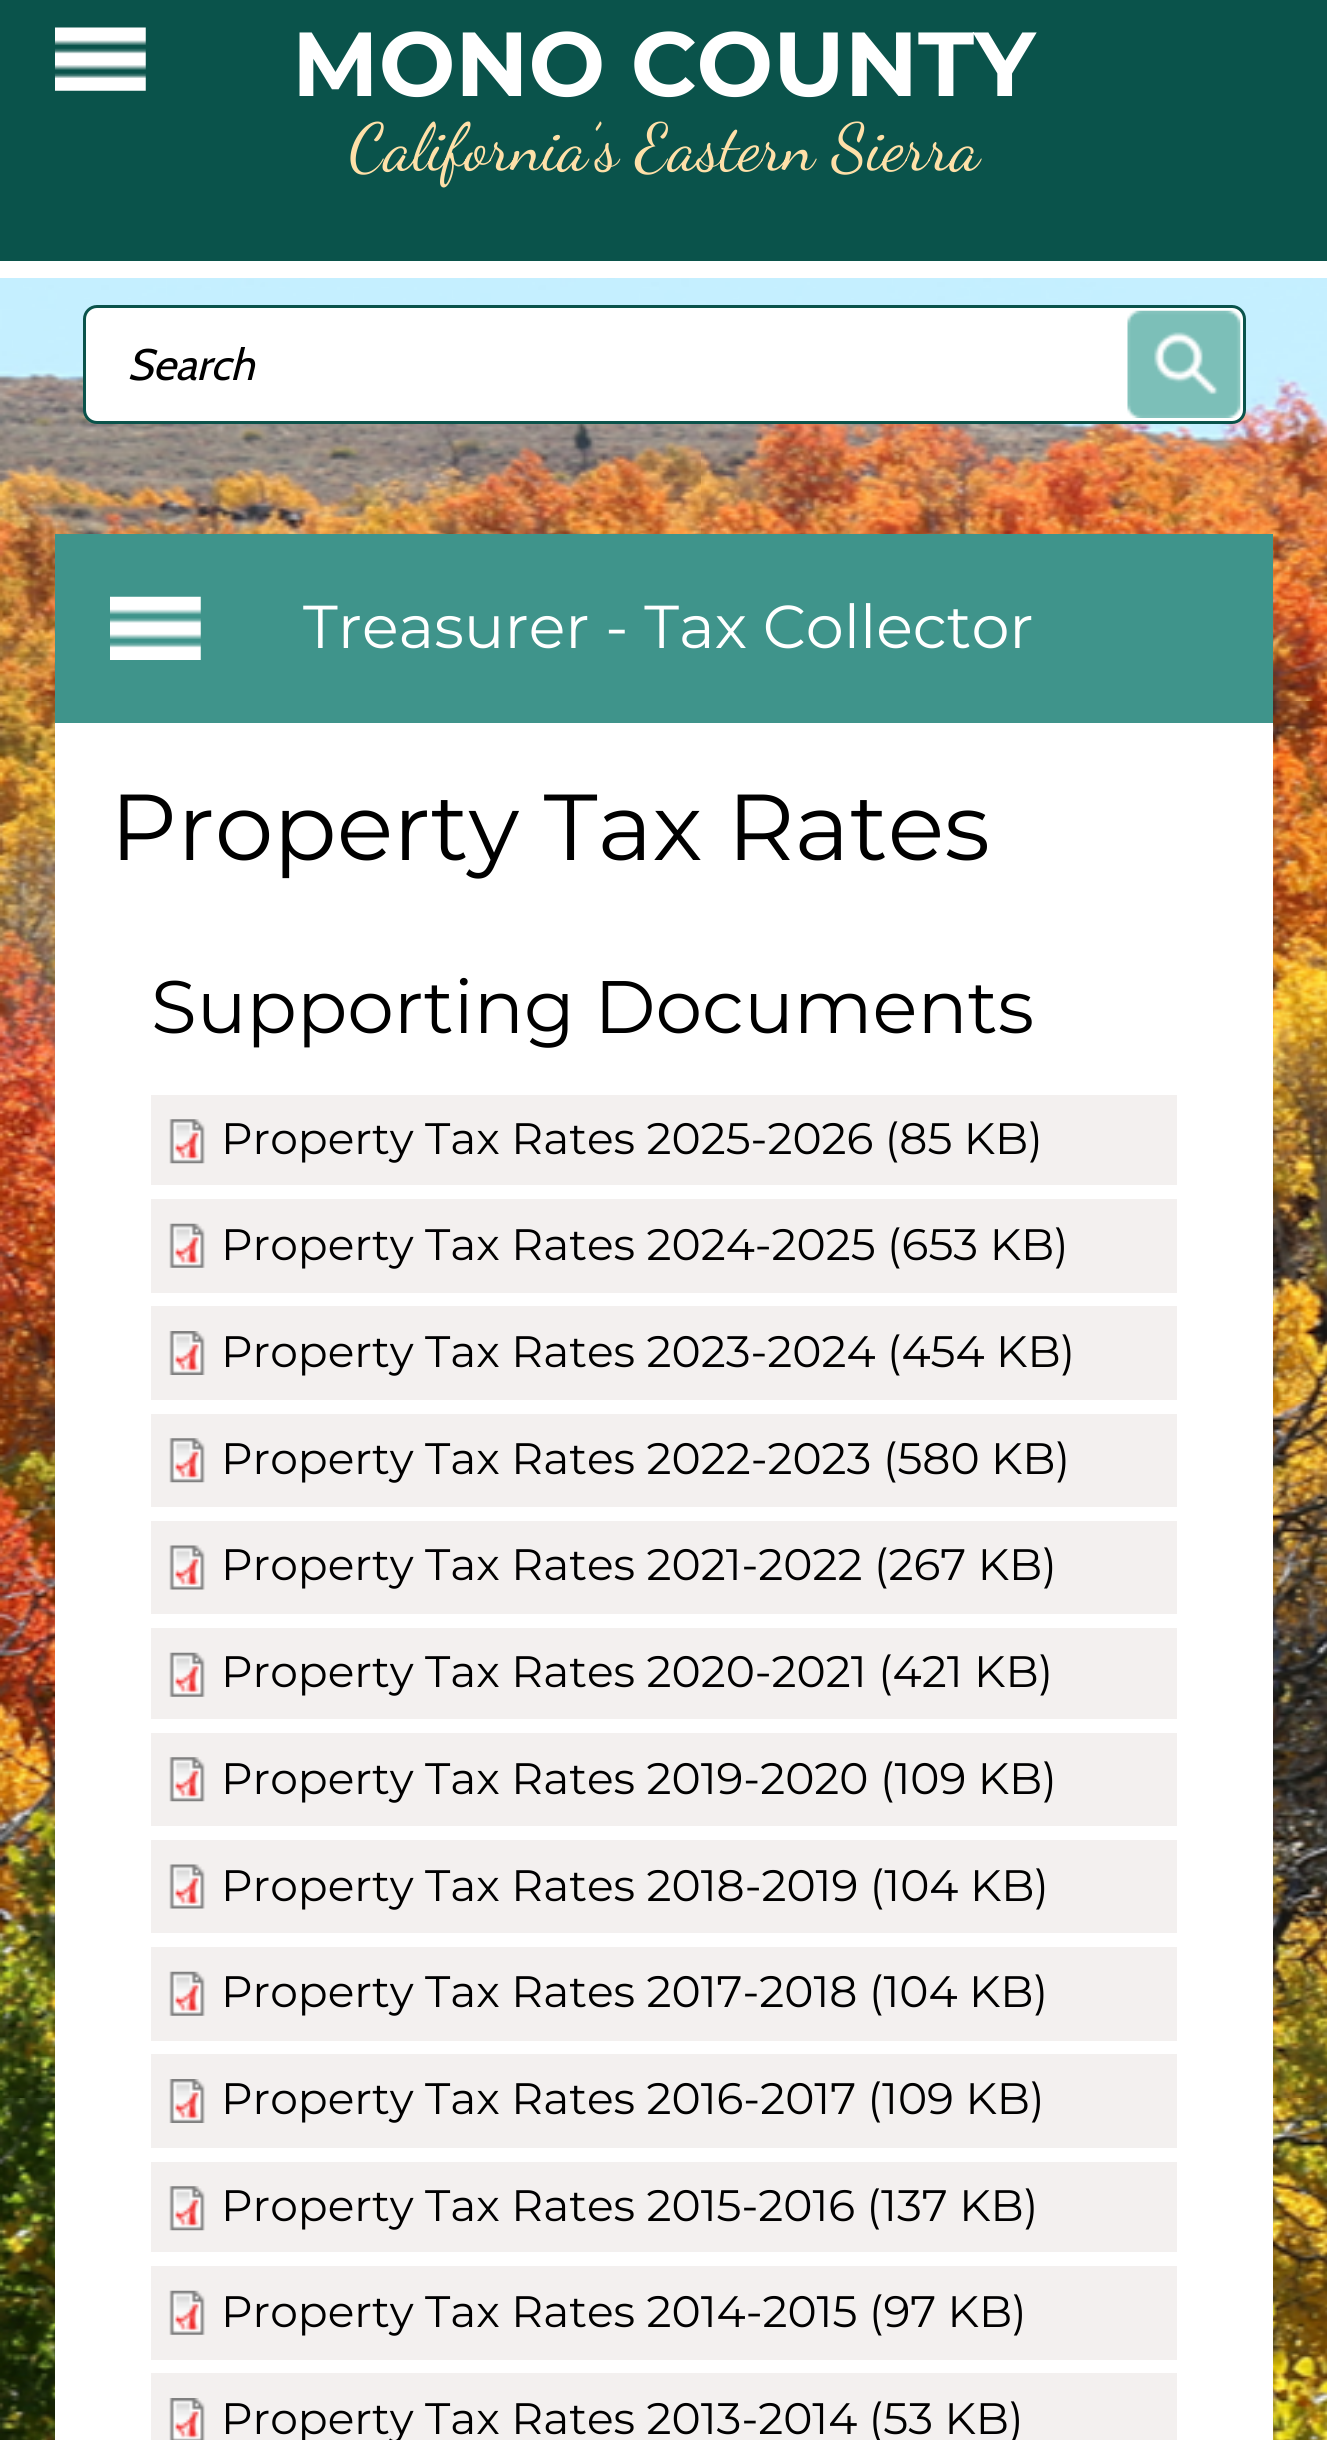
#include <cairo.h>
#include <math.h>
#include <stddef.h>

static cairo_t *ctx;

static void use_color(int r, int g, int b) {
    cairo_set_source_rgb(ctx, r / 255.0, g / 255.0, b / 255.0);
}

static void round_rect(double x, double y, double w, double h, double r) {
    cairo_new_sub_path(ctx);
    cairo_arc(ctx, x + w - r, y + h - r, r, 0, M_PI / 2);
    cairo_arc(ctx, x + r, y + h - r, r, M_PI / 2, M_PI);
    cairo_arc(ctx, x + r, y + r, r, M_PI, 1.5 * M_PI);
    cairo_arc(ctx, x + w - r, y + r, r, 1.5 * M_PI, 2 * M_PI);
    cairo_close_path(ctx);
}

static void picture(const char *path, double x, double y, double w, double h) {
    cairo_surface_t *image = cairo_image_surface_create_from_png(path);
    cairo_save(ctx);
    cairo_set_source_surface(ctx, image, x, y);
    cairo_rectangle(ctx, x, y, w, h);
    cairo_fill(ctx);
    cairo_restore(ctx);
    cairo_surface_destroy(image);
}

int main(void) {
    cairo_surface_t *surface = cairo_image_surface_create(CAIRO_FORMAT_RGB24, 1327, 2440);
    ctx = cairo_create(surface);
    cairo_font_options_t *options = cairo_font_options_create();
    cairo_font_options_set_hint_metrics(options, CAIRO_HINT_METRICS_OFF);
    cairo_font_options_set_hint_style(options, CAIRO_HINT_STYLE_NONE);
    cairo_set_font_options(ctx, options);
    cairo_set_miter_limit(ctx, 4);
    use_color(255, 255, 255);
    cairo_paint(ctx);
    picture("img1.png", 0, 278, 1327, 2162);
    use_color(10, 83, 75);
    cairo_rectangle(ctx, 0, 0, 1327, 261);
    cairo_fill(ctx);
    picture("img2.png", 55, 27, 91, 64);
    cairo_select_font_face(ctx, "Montserrat", CAIRO_FONT_SLANT_NORMAL, CAIRO_FONT_WEIGHT_BOLD);
    cairo_set_font_size(ctx, 90.75);
    use_color(255, 255, 255);
    cairo_move_to(ctx, 292, 96);
    cairo_show_text(ctx, "MONO COUNTY");
    cairo_select_font_face(ctx, "Dancing Script", CAIRO_FONT_SLANT_NORMAL, CAIRO_FONT_WEIGHT_NORMAL);
    cairo_set_font_size(ctx, 66);
    use_color(255, 224, 168);
    cairo_move_to(ctx, 349, 169);
    cairo_show_text(ctx, "California’s Eastern Sierra");
    use_color(255, 255, 255);
    round_rect(84.5, 306.5, 1160, 116, 12.5);
    cairo_fill_preserve(ctx);
    use_color(10, 83, 75);
    cairo_set_line_width(ctx, 3);
    cairo_stroke(ctx);
    cairo_select_font_face(ctx, "Cabin", CAIRO_FONT_SLANT_ITALIC, CAIRO_FONT_WEIGHT_NORMAL);
    cairo_set_font_size(ctx, 44);
    use_color(0, 0, 0);
    cairo_move_to(ctx, 127, 380);
    cairo_show_text(ctx, "Search");
    picture("img3.png", 1127, 310, 114, 108);
    use_color(255, 255, 255);
    cairo_rectangle(ctx, 55, 723, 1218, 1717);
    cairo_fill(ctx);
    use_color(63, 148, 139);
    cairo_rectangle(ctx, 55, 534, 1218, 189);
    cairo_fill(ctx);
    cairo_select_font_face(ctx, "Montserrat", CAIRO_FONT_SLANT_NORMAL, CAIRO_FONT_WEIGHT_NORMAL);
    cairo_set_font_size(ctx, 60.5);
    use_color(255, 255, 255);
    cairo_move_to(ctx, 303, 648);
    cairo_show_text(ctx, "Treasurer - Tax Collector");
    cairo_set_font_size(ctx, 93.5);
    use_color(0, 0, 0);
    cairo_move_to(ctx, 110, 860);
    cairo_show_text(ctx, "Property Tax Rates");
    cairo_set_font_size(ctx, 74.25);
    cairo_move_to(ctx, 151, 1033);
    cairo_show_text(ctx, "Supporting Documents");
    use_color(243, 240, 239);
    cairo_rectangle(ctx, 151, 1095, 1026, 90);
    cairo_fill(ctx);
    picture("img4.png", 169, 1119, 36, 45);
    cairo_set_font_size(ctx, 44);
    use_color(0, 0, 0);
    cairo_move_to(ctx, 221, 1154);
    cairo_show_text(ctx, "Property Tax Rates 2025-2026 (85 KB)");
    use_color(243, 240, 239);
    cairo_rectangle(ctx, 151, 1199, 1026, 94);
    cairo_fill(ctx);
    picture("img5.png", 169, 1223, 36, 45);
    use_color(0, 0, 0);
    cairo_move_to(ctx, 221, 1260);
    cairo_show_text(ctx, "Property Tax Rates 2024-2025 (653 KB)");
    use_color(243, 240, 239);
    cairo_rectangle(ctx, 151, 1306, 1026, 94);
    cairo_fill(ctx);
    picture("img6.png", 169, 1331, 36, 44);
    use_color(0, 0, 0);
    cairo_move_to(ctx, 221, 1367);
    cairo_show_text(ctx, "Property Tax Rates 2023-2024 (454 KB)");
    use_color(243, 240, 239);
    cairo_rectangle(ctx, 151, 1414, 1026, 93);
    cairo_fill(ctx);
    picture("img4.png", 169, 1438, 36, 45);
    use_color(0, 0, 0);
    cairo_move_to(ctx, 221, 1474);
    cairo_show_text(ctx, "Property Tax Rates 2022-2023 (580 KB)");
    use_color(243, 240, 239);
    cairo_rectangle(ctx, 151, 1521, 1026, 93);
    cairo_fill(ctx);
    picture("img7.png", 169, 1545, 36, 45);
    use_color(0, 0, 0);
    cairo_move_to(ctx, 221, 1580);
    cairo_show_text(ctx, "Property Tax Rates 2021-2022 (267 KB)");
    use_color(243, 240, 239);
    cairo_rectangle(ctx, 151, 1628, 1026, 91);
    cairo_fill(ctx);
    picture("img5.png", 169, 1652, 36, 45);
    use_color(0, 0, 0);
    cairo_move_to(ctx, 221, 1687);
    cairo_show_text(ctx, "Property Tax Rates 2020-2021 (421 KB)");
    use_color(243, 240, 239);
    cairo_rectangle(ctx, 151, 1733, 1026, 93);
    cairo_fill(ctx);
    picture("img4.png", 169, 1757, 36, 45);
    use_color(0, 0, 0);
    cairo_move_to(ctx, 221, 1794);
    cairo_show_text(ctx, "Property Tax Rates 2019-2020 (109 KB)");
    use_color(243, 240, 239);
    cairo_rectangle(ctx, 151, 1840, 1026, 93);
    cairo_fill(ctx);
    picture("img7.png", 169, 1864, 36, 45);
    use_color(0, 0, 0);
    cairo_move_to(ctx, 221, 1901);
    cairo_show_text(ctx, "Property Tax Rates 2018-2019 (104 KB)");
    use_color(243, 240, 239);
    cairo_rectangle(ctx, 151, 1947, 1026, 94);
    cairo_fill(ctx);
    picture("img5.png", 169, 1971, 36, 45);
    use_color(0, 0, 0);
    cairo_move_to(ctx, 221, 2007);
    cairo_show_text(ctx, "Property Tax Rates 2017-2018 (104 KB)");
    use_color(243, 240, 239);
    cairo_rectangle(ctx, 151, 2054, 1026, 94);
    cairo_fill(ctx);
    picture("img6.png", 169, 2079, 36, 44);
    use_color(0, 0, 0);
    cairo_move_to(ctx, 221, 2114);
    cairo_show_text(ctx, "Property Tax Rates 2016-2017 (109 KB)");
    use_color(243, 240, 239);
    cairo_rectangle(ctx, 151, 2162, 1026, 90);
    cairo_fill(ctx);
    picture("img4.png", 169, 2186, 36, 45);
    use_color(0, 0, 0);
    cairo_move_to(ctx, 221, 2221);
    cairo_show_text(ctx, "Property Tax Rates 2015-2016 (137 KB)");
    use_color(243, 240, 239);
    cairo_rectangle(ctx, 151, 2266, 1026, 94);
    cairo_fill(ctx);
    picture("img5.png", 169, 2290, 36, 45);
    use_color(0, 0, 0);
    cairo_move_to(ctx, 221, 2327);
    cairo_show_text(ctx, "Property Tax Rates 2014-2015 (97 KB)");
    use_color(243, 240, 239);
    cairo_rectangle(ctx, 151, 2373, 1026, 67);
    cairo_fill(ctx);
    picture("img8.png", 169, 2398, 36, 42);
    use_color(0, 0, 0);
    cairo_move_to(ctx, 221, 2434);
    cairo_show_text(ctx, "Property Tax Rates 2013-2014 (53 KB)");
    picture("img9.png", 110, 596, 91, 64);
    cairo_surface_write_to_png(surface, "result.png");
    cairo_font_options_destroy(options);
    cairo_destroy(ctx);
    cairo_surface_destroy(surface);
    return 0;
}
